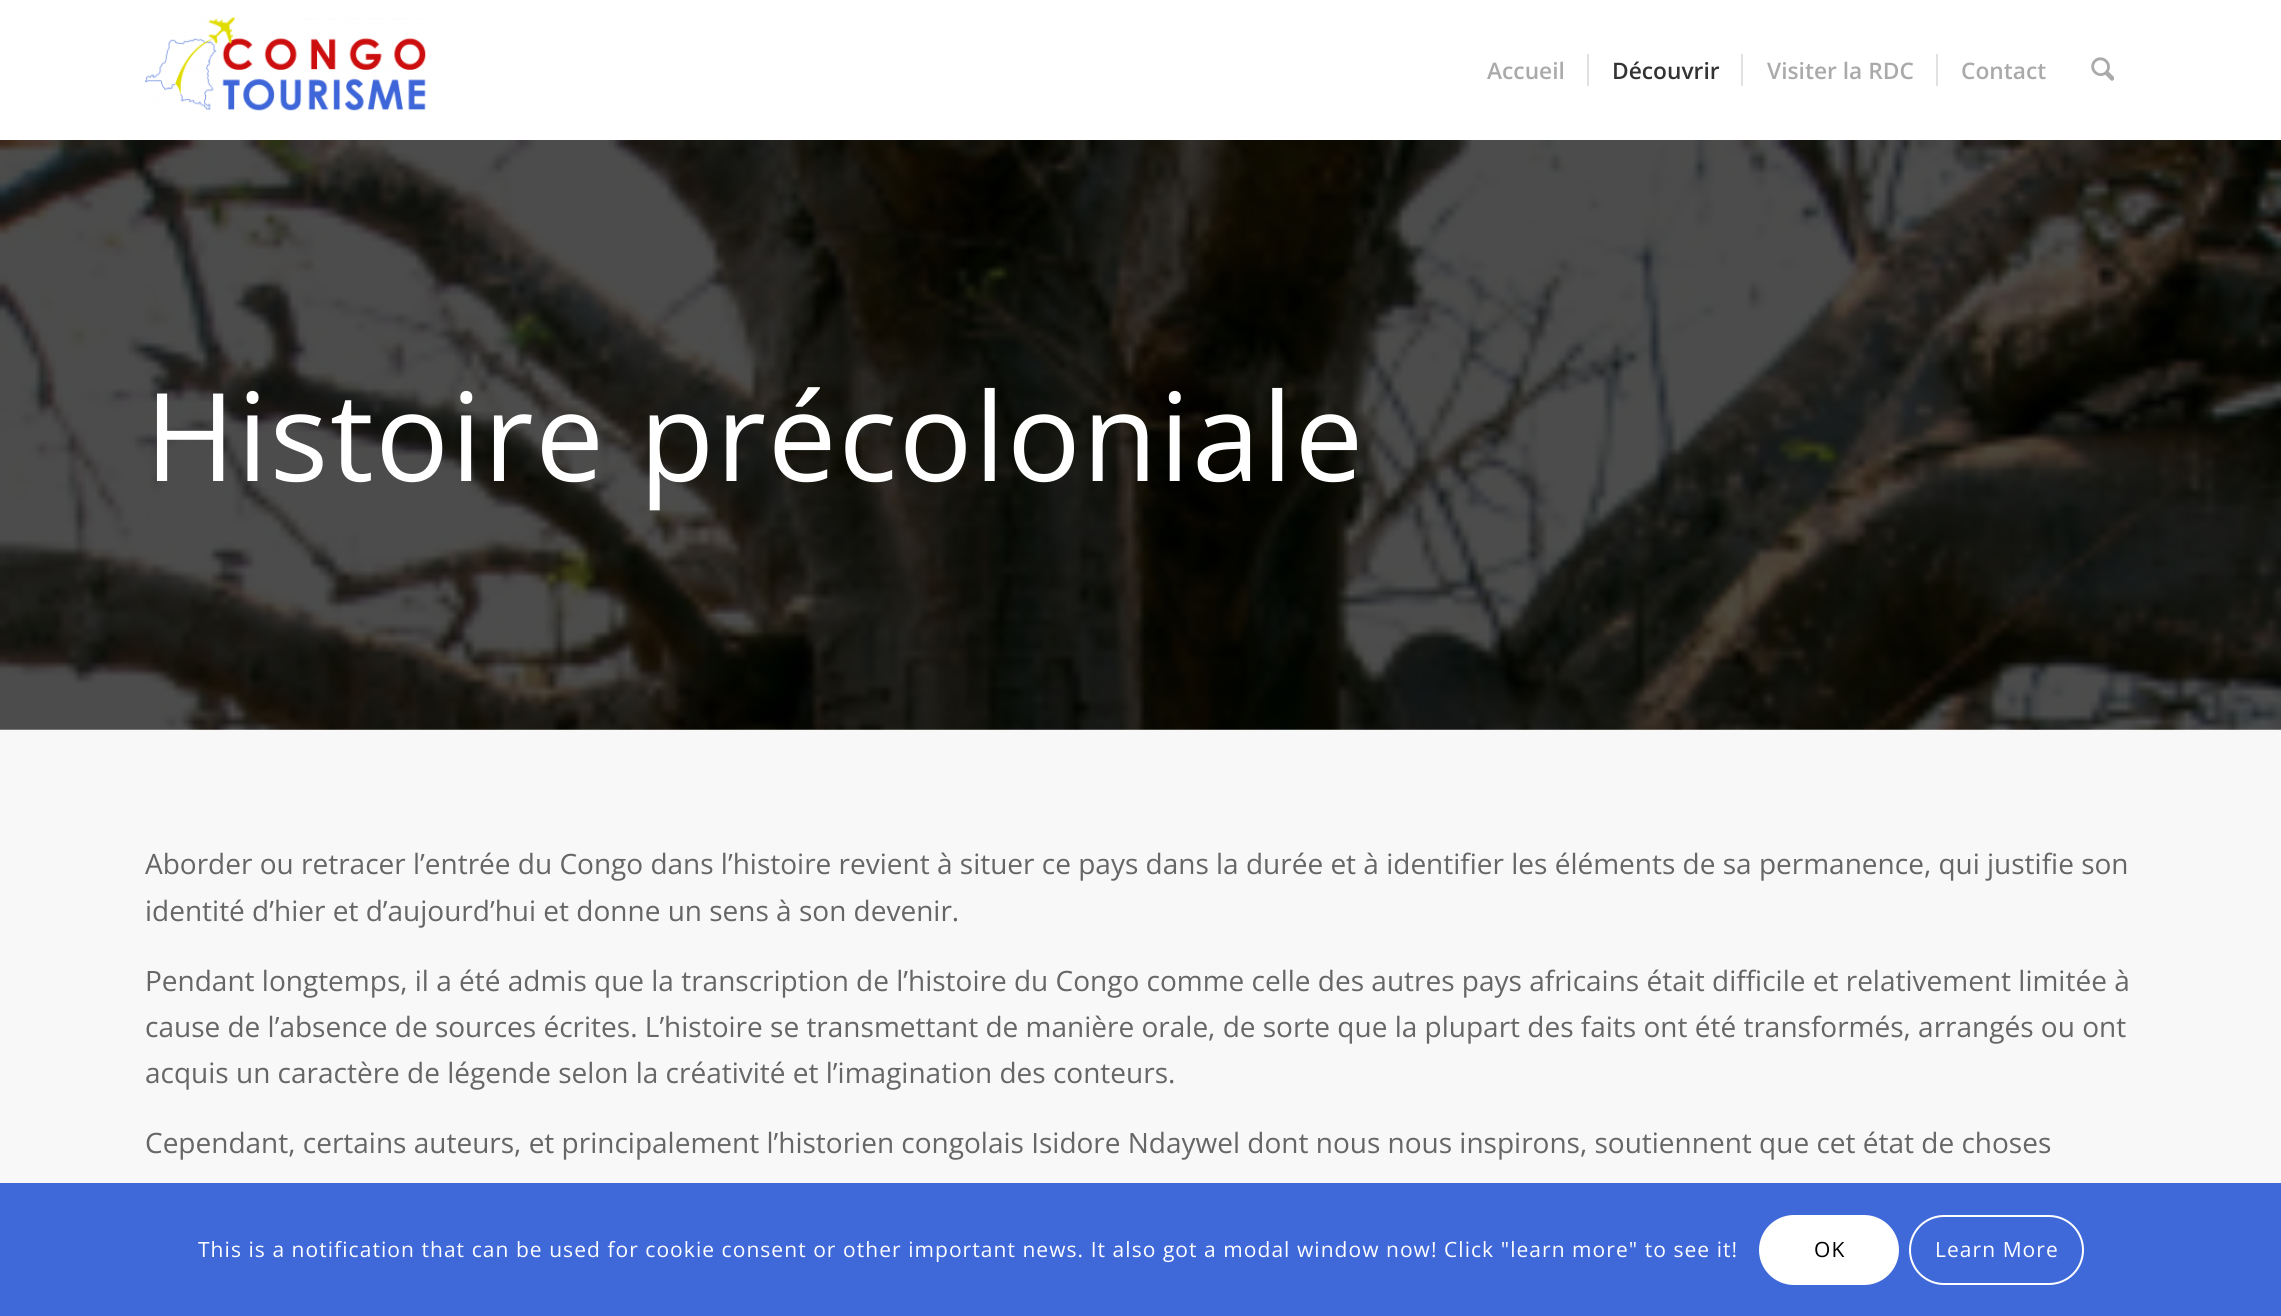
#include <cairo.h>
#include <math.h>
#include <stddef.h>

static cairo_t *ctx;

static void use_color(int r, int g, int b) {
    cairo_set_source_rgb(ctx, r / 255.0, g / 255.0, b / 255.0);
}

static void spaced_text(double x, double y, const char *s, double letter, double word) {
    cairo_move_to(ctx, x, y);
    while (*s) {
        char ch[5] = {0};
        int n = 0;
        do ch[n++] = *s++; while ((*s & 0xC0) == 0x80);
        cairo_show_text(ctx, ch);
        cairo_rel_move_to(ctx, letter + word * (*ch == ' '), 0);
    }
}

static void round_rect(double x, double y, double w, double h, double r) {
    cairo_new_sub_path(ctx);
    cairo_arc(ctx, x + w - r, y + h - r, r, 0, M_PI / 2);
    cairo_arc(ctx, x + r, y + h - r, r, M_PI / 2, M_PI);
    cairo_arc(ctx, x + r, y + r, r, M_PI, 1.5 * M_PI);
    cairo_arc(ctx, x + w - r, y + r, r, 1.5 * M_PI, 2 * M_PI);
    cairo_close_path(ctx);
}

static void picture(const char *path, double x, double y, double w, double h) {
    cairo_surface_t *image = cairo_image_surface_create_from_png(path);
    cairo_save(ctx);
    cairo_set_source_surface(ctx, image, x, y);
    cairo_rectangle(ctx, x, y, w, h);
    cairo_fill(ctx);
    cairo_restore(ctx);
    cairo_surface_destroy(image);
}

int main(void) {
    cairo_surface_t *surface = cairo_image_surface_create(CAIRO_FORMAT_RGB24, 2281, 1316);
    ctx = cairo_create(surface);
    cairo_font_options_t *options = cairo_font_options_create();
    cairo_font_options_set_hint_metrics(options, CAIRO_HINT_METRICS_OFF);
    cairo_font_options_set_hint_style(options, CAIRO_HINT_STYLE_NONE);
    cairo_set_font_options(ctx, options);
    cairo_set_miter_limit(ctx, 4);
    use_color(255, 255, 255);
    cairo_paint(ctx);
    picture("img1.png", 145, 16, 281, 95);
    cairo_select_font_face(ctx, "Open Sans SemiBold", CAIRO_FONT_SLANT_NORMAL, CAIRO_FONT_WEIGHT_NORMAL);
    cairo_set_font_size(ctx, 22.75);
    use_color(170, 170, 170);
    cairo_move_to(ctx, 1487, 79);
    cairo_show_text(ctx, "Accueil");
    use_color(51, 51, 51);
    cairo_move_to(ctx, 1612, 79);
    cairo_show_text(ctx, "Découvrir");
    use_color(225, 225, 225);
    cairo_rectangle(ctx, 1587, 54, 2, 32);
    cairo_fill(ctx);
    use_color(170, 170, 170);
    cairo_move_to(ctx, 1767, 79);
    cairo_show_text(ctx, "Visiter la RDC");
    use_color(225, 225, 225);
    cairo_rectangle(ctx, 1741, 54, 2, 32);
    cairo_fill(ctx);
    use_color(170, 170, 170);
    cairo_move_to(ctx, 1961, 79);
    cairo_show_text(ctx, "Contact");
    use_color(225, 225, 225);
    cairo_rectangle(ctx, 1936, 54, 2, 32);
    cairo_fill(ctx);
    picture("img2.png", 2091, 57, 23, 24);
    picture("img3.png", 0, 140, 2281, 590);
    cairo_select_font_face(ctx, "Open Sans", CAIRO_FONT_SLANT_NORMAL, CAIRO_FONT_WEIGHT_NORMAL);
    cairo_set_font_size(ctx, 122.5);
    use_color(255, 255, 255);
    spaced_text(145, 481, "Histoire précoloniale", 1.75, 0);
    use_color(248, 248, 248);
    cairo_rectangle(ctx, 0, 730, 2281, 453);
    cairo_fill(ctx);
    cairo_set_font_size(ctx, 28);
    use_color(102, 102, 102);
    cairo_move_to(ctx, 145, 874);
    cairo_show_text(ctx, "Aborder ou retracer l’entrée du Congo dans l’histoire revient à situer ce pays dans la durée et à identifier les éléments de sa permanence, qui justifie son");
    cairo_move_to(ctx, 145, 921);
    cairo_show_text(ctx, "identité d’hier et d’aujourd’hui et donne un sens à son devenir.");
    cairo_move_to(ctx, 145, 991);
    cairo_show_text(ctx, "Pendant longtemps, il a été admis que la transcription de l’histoire du Congo comme celle des autres pays africains était difficile et relativement limitée à");
    cairo_move_to(ctx, 145, 1037);
    cairo_show_text(ctx, "cause de l’absence de sources écrites. L’histoire se transmettant de manière orale, de sorte que la plupart des faits ont été transformés, arrangés ou ont");
    cairo_move_to(ctx, 145, 1083);
    cairo_show_text(ctx, "acquis un caractère de légende selon la créativité et l’imagination des conteurs.");
    cairo_move_to(ctx, 145, 1153);
    cairo_show_text(ctx, "Cependant, certains auteurs, et principalement l’historien congolais Isidore Ndaywel dont nous nous inspirons, soutiennent que cet état de choses");
    use_color(63, 104, 217);
    cairo_rectangle(ctx, 0, 1183, 2281, 133);
    cairo_fill(ctx);
    cairo_set_font_size(ctx, 21);
    use_color(255, 255, 255);
    spaced_text(198, 1257, "This is a notification that can be used for cookie consent or other important news. It also got a modal window now! Click \"learn more\" to see it!", 1.05, 0);
    round_rect(1759, 1215, 140, 70, 35);
    cairo_fill(ctx);
    use_color(0, 0, 0);
    spaced_text(1814, 1257, "OK", 1.05, 0);
    round_rect(1910, 1216, 173, 68, 34);
    use_color(255, 255, 255);
    cairo_stroke(ctx);
    spaced_text(1935, 1257, "Learn More", 1.05, 0);
    cairo_surface_write_to_png(surface, "result.png");
    cairo_font_options_destroy(options);
    cairo_destroy(ctx);
    cairo_surface_destroy(surface);
    return 0;
}
